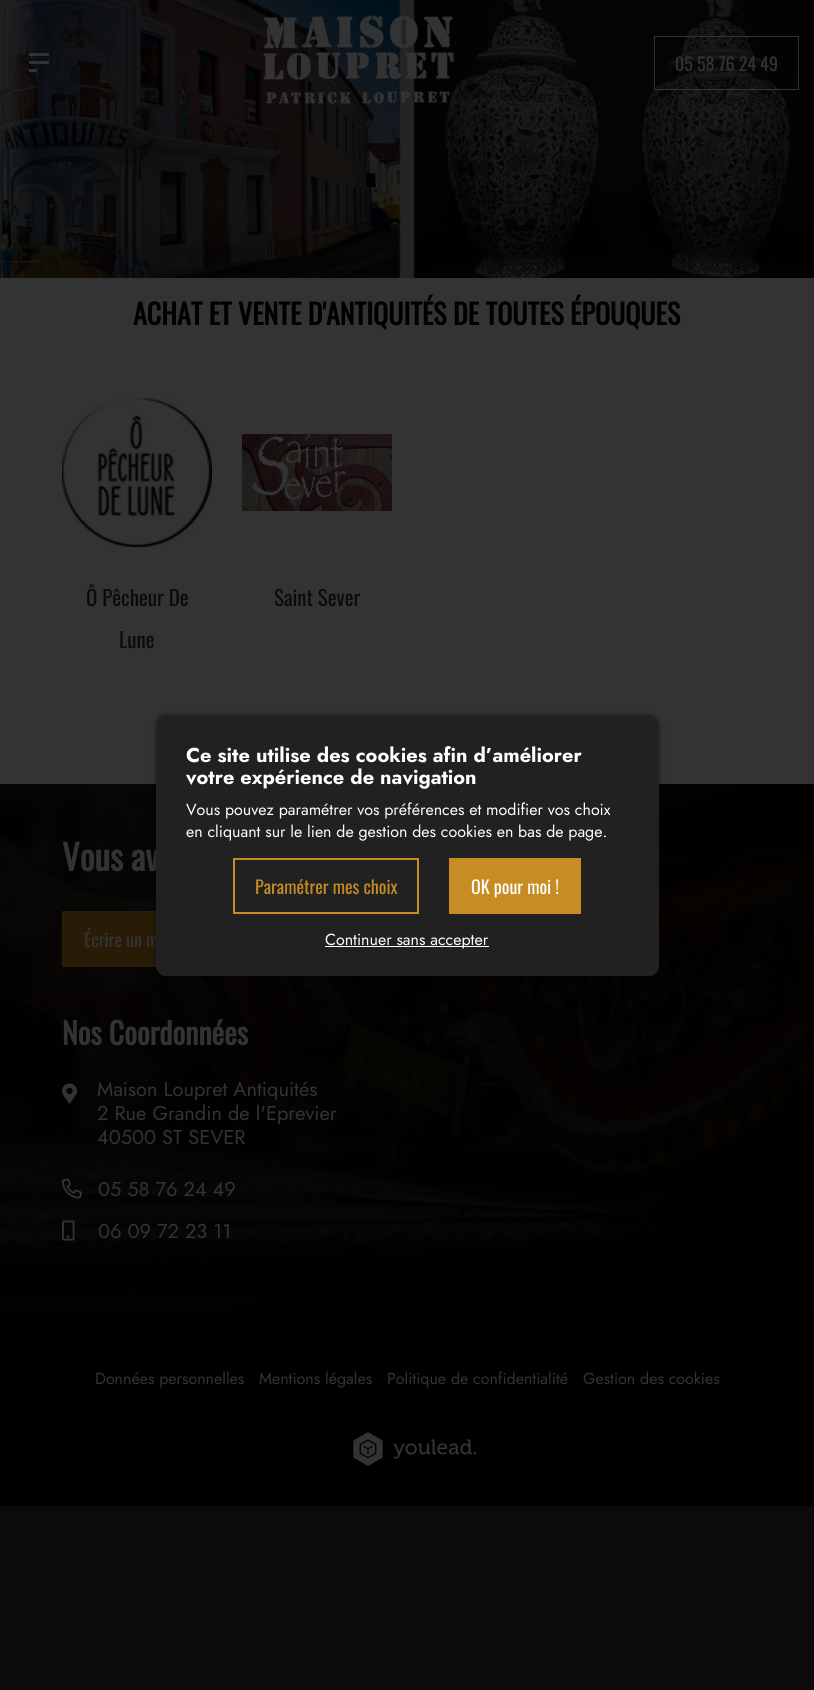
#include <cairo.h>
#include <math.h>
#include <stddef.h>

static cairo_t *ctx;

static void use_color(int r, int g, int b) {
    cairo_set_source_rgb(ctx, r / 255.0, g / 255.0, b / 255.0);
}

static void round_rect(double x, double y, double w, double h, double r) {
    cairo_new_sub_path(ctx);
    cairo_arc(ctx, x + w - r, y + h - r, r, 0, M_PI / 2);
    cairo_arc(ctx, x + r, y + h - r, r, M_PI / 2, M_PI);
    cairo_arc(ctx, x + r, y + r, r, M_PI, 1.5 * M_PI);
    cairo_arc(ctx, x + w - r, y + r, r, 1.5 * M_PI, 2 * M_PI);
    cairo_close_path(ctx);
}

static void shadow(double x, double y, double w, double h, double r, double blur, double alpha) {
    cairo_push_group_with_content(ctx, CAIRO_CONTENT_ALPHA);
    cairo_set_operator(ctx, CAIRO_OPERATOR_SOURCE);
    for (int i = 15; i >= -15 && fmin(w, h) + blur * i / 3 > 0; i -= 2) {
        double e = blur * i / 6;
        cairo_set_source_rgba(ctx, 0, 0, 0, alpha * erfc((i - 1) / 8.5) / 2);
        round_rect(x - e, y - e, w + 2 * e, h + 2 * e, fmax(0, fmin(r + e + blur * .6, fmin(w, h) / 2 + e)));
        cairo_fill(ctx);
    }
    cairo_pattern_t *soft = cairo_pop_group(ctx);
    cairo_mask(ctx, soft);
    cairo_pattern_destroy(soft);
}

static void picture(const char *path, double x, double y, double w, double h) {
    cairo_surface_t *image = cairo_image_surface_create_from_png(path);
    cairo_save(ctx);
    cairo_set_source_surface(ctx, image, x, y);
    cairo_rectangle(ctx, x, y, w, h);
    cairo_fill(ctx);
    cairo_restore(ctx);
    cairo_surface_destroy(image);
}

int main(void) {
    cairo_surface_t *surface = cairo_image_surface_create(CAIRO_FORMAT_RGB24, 814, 1690);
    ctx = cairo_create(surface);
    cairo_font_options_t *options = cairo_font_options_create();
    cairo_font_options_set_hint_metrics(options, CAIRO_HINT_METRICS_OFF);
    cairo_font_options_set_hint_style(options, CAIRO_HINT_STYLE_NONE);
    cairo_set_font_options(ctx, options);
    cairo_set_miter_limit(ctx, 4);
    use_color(11, 11, 11);
    cairo_paint(ctx);
    use_color(51, 51, 51);
    cairo_rectangle(ctx, 0, 0, 814, 784);
    cairo_fill(ctx);
    picture("img1.png", 0, 0, 814, 278);
    cairo_rectangle(ctx, 29, 53, 20, 3);
    cairo_fill(ctx);
    cairo_rectangle(ctx, 29, 61, 20, 3);
    cairo_fill(ctx);
    cairo_rectangle(ctx, 29, 69, 8, 3);
    cairo_fill(ctx);
    picture("img2.png", 263, 15, 191, 89);
    cairo_rectangle(ctx, 654.5, 36.5, 144, 53);
    cairo_set_line_width(ctx, 1);
    cairo_stroke(ctx);
    cairo_select_font_face(ctx, "Oswald", CAIRO_FONT_SLANT_NORMAL, CAIRO_FONT_WEIGHT_NORMAL);
    cairo_set_font_size(ctx, 18);
    cairo_move_to(ctx, 675, 71);
    cairo_show_text(ctx, "05 58 76 24 49");
    cairo_select_font_face(ctx, "Oswald", CAIRO_FONT_SLANT_NORMAL, CAIRO_FONT_WEIGHT_BOLD);
    cairo_set_font_size(ctx, 28);
    use_color(0, 0, 0);
    cairo_move_to(ctx, 133, 325);
    cairo_show_text(ctx, "ACHAT ET VENTE D'ANTIQUITÉS DE TOUTES ÉPOUQUES");
    picture("img3.png", 62, 398, 150, 149);
    cairo_select_font_face(ctx, "Oswald", CAIRO_FONT_SLANT_NORMAL, CAIRO_FONT_WEIGHT_NORMAL);
    cairo_set_font_size(ctx, 21);
    use_color(10, 11, 16);
    cairo_move_to(ctx, 86, 606);
    cairo_show_text(ctx, "Ô Pêcheur De");
    cairo_move_to(ctx, 119, 648);
    cairo_show_text(ctx, "Lune");
    picture("img4.png", 242, 434, 150, 77);
    cairo_move_to(ctx, 274, 606);
    cairo_show_text(ctx, "Saint Sever");
    picture("img5.png", 0, 784, 814, 529);
    cairo_select_font_face(ctx, "Oswald", CAIRO_FONT_SLANT_NORMAL, CAIRO_FONT_WEIGHT_BOLD);
    cairo_set_font_size(ctx, 35);
    use_color(51, 51, 51);
    cairo_move_to(ctx, 62, 871);
    cairo_show_text(ctx, "Vous av");
    use_color(40, 28, 7);
    cairo_rectangle(ctx, 62, 911, 95, 56);
    cairo_fill(ctx);
    cairo_select_font_face(ctx, "Oswald", CAIRO_FONT_SLANT_NORMAL, CAIRO_FONT_WEIGHT_NORMAL);
    cairo_set_font_size(ctx, 18);
    use_color(51, 51, 51);
    cairo_move_to(ctx, 84, 947);
    cairo_show_text(ctx, "Écrire un m");
    cairo_select_font_face(ctx, "Oswald", CAIRO_FONT_SLANT_NORMAL, CAIRO_FONT_WEIGHT_BOLD);
    cairo_set_font_size(ctx, 30);
    cairo_move_to(ctx, 62, 1045);
    cairo_show_text(ctx, "Nos Coordonnées");
    picture("img6.png", 62, 1083, 15, 21);
    cairo_select_font_face(ctx, "Jost", CAIRO_FONT_SLANT_NORMAL, CAIRO_FONT_WEIGHT_NORMAL);
    cairo_set_font_size(ctx, 20);
    cairo_move_to(ctx, 97, 1096);
    cairo_show_text(ctx, "Maison Loupret Antiquités");
    cairo_move_to(ctx, 97, 1120);
    cairo_show_text(ctx, "2 Rue Grandin de l'Eprevier");
    cairo_move_to(ctx, 97, 1144);
    cairo_show_text(ctx, "40500 ST SEVER");
    picture("img7.png", 62, 1178, 20, 21);
    cairo_move_to(ctx, 98, 1196);
    cairo_show_text(ctx, "05 58 76 24 49");
    picture("img8.png", 62, 1220, 13, 21);
    cairo_move_to(ctx, 98, 1238);
    cairo_show_text(ctx, "06 09 72 23 11");
    use_color(0, 0, 0);
    cairo_rectangle(ctx, 0, 1313, 814, 193);
    cairo_fill(ctx);
    cairo_set_font_size(ctx, 16);
    use_color(51, 51, 51);
    cairo_move_to(ctx, 95, 1384);
    cairo_show_text(ctx, "Données personnelles");
    cairo_move_to(ctx, 259, 1384);
    cairo_show_text(ctx, "Mentions légales");
    cairo_move_to(ctx, 387, 1384);
    cairo_show_text(ctx, "Politique de confidentialité");
    cairo_move_to(ctx, 583, 1384);
    cairo_show_text(ctx, "Gestion des cookies");
    picture("img9.png", 353, 1432, 123, 34);
    use_color(0, 0, 0);
    shadow(156, 715, 503, 261, 10, 3, 0.4);
    use_color(33, 33, 33);
    round_rect(156, 715, 503, 261, 10);
    cairo_fill(ctx);
    cairo_select_font_face(ctx, "Jost", CAIRO_FONT_SLANT_NORMAL, CAIRO_FONT_WEIGHT_BOLD);
    cairo_set_font_size(ctx, 20);
    use_color(255, 255, 255);
    cairo_move_to(ctx, 186, 762);
    cairo_show_text(ctx, "Ce site utilise des cookies afin d’améliorer");
    cairo_move_to(ctx, 186, 784);
    cairo_show_text(ctx, "votre expérience de navigation");
    cairo_select_font_face(ctx, "Jost", CAIRO_FONT_SLANT_NORMAL, CAIRO_FONT_WEIGHT_NORMAL);
    cairo_set_font_size(ctx, 16);
    cairo_move_to(ctx, 186, 815);
    cairo_show_text(ctx, "Vous pouvez paramétrer vos préférences et modifier vos choix");
    cairo_move_to(ctx, 186, 837);
    cairo_show_text(ctx, "en cliquant sur le lien de gestion des cookies en bas de page.");
    cairo_rectangle(ctx, 234, 859, 184, 54);
    use_color(199, 140, 36);
    cairo_set_line_width(ctx, 2);
    cairo_stroke(ctx);
    cairo_select_font_face(ctx, "Oswald", CAIRO_FONT_SLANT_NORMAL, CAIRO_FONT_WEIGHT_NORMAL);
    cairo_set_font_size(ctx, 18);
    cairo_move_to(ctx, 255, 894);
    cairo_show_text(ctx, "Paramétrer mes choix");
    cairo_rectangle(ctx, 449, 858, 132, 56);
    cairo_fill(ctx);
    use_color(255, 255, 255);
    cairo_move_to(ctx, 471, 894);
    cairo_show_text(ctx, "OK pour moi !");
    cairo_rectangle(ctx, 325, 946, 164, 1);
    cairo_fill(ctx);
    cairo_select_font_face(ctx, "Jost", CAIRO_FONT_SLANT_NORMAL, CAIRO_FONT_WEIGHT_NORMAL);
    cairo_set_font_size(ctx, 16);
    cairo_move_to(ctx, 325, 945);
    cairo_show_text(ctx, "Continuer sans accepter");
    cairo_surface_write_to_png(surface, "result.png");
    cairo_font_options_destroy(options);
    cairo_destroy(ctx);
    cairo_surface_destroy(surface);
    return 0;
}
